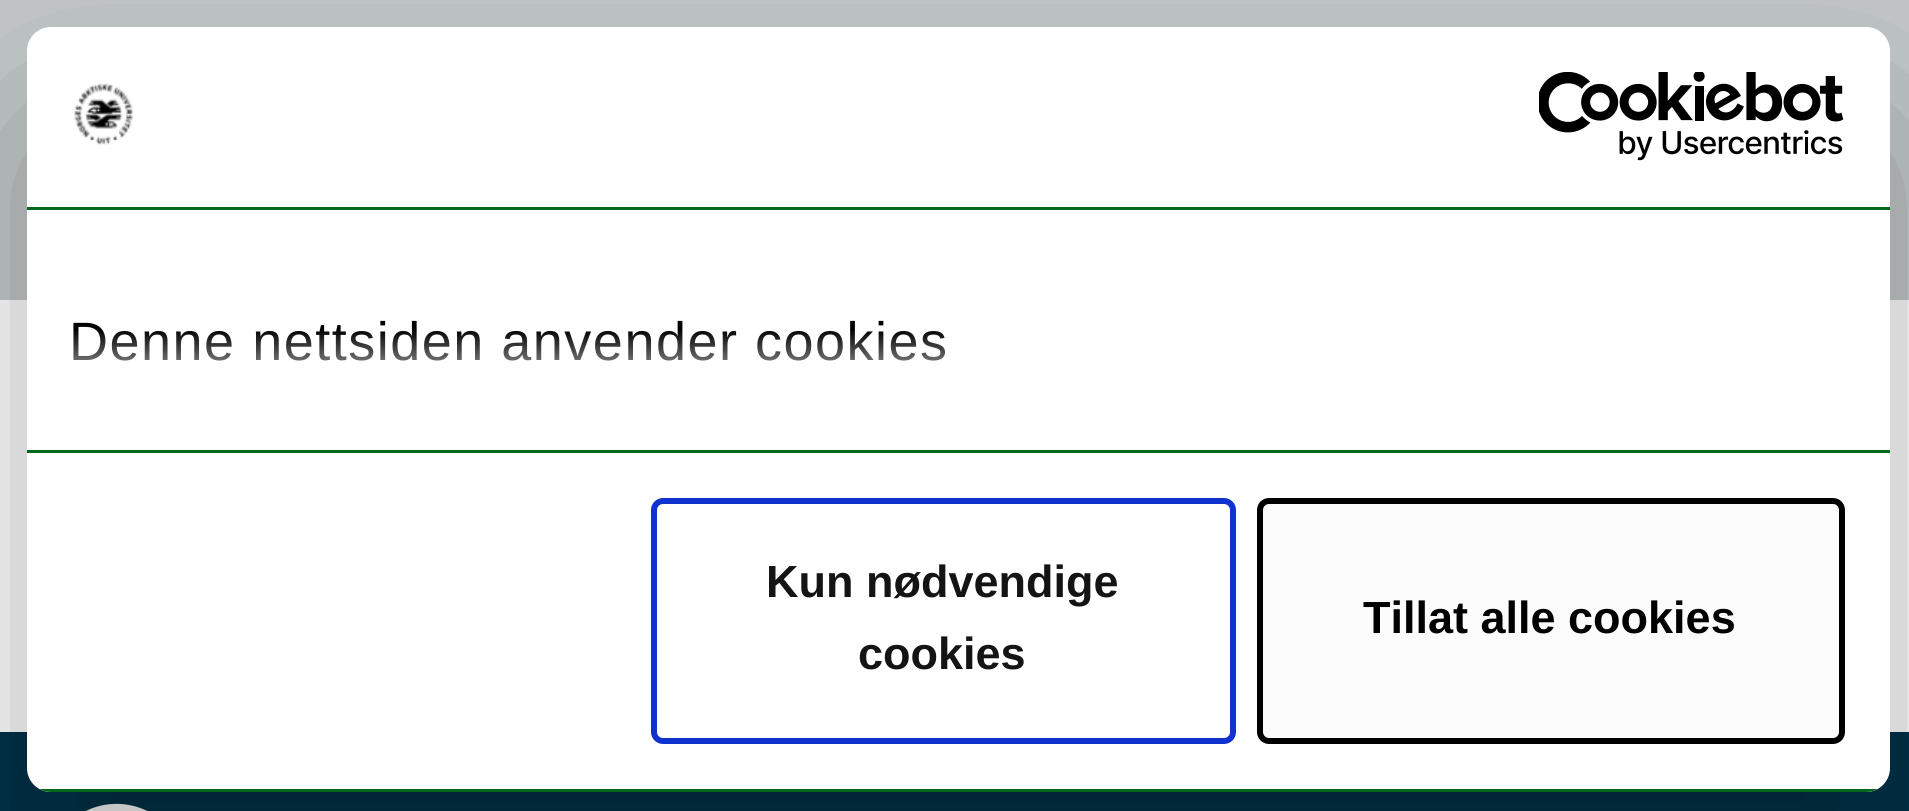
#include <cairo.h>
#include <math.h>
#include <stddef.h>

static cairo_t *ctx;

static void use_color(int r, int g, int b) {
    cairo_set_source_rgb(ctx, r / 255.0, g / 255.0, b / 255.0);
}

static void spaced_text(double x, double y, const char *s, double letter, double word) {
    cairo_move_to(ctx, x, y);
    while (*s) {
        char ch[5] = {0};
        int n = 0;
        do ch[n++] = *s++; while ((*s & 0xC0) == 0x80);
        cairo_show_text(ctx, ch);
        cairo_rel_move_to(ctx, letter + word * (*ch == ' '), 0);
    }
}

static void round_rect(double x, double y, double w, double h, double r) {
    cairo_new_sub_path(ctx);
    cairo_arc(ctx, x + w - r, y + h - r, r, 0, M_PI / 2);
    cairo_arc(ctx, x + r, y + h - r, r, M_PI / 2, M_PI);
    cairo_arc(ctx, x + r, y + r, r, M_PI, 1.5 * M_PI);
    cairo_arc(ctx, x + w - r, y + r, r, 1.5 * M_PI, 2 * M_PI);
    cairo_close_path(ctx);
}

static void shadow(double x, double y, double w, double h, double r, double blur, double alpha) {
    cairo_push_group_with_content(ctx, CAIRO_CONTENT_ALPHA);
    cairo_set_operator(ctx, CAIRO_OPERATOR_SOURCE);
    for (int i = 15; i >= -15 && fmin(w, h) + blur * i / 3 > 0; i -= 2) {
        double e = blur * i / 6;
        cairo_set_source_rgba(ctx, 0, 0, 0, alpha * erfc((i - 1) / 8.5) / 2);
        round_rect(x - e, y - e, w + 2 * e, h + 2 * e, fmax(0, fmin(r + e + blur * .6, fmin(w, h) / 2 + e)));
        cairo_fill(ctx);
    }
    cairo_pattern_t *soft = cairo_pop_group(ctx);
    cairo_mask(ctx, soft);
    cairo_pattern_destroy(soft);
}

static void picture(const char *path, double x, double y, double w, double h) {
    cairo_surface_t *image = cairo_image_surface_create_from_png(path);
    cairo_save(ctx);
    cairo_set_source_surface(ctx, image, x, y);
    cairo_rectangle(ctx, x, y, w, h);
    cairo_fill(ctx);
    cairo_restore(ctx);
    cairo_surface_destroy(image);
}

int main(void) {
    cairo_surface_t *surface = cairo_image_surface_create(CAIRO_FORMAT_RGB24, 1909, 811);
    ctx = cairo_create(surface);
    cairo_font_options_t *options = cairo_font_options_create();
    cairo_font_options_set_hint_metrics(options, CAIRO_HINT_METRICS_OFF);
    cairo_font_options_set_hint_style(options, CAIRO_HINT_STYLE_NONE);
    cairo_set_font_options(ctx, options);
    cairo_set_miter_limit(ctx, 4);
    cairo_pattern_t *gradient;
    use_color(255, 255, 255);
    cairo_paint(ctx);
    use_color(196, 201, 202);
    cairo_rectangle(ctx, 0, 0, 1909, 300);
    cairo_fill(ctx);
    use_color(0, 51, 73);
    cairo_rectangle(ctx, 0, 732, 1909, 79);
    cairo_fill(ctx);
    use_color(255, 255, 255);
    cairo_new_path(ctx);
    cairo_move_to(ctx, 189, 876);
    cairo_curve_to(ctx, 188, 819, 125, 784, 77, 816);
    cairo_curve_to(ctx, 65, 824, 56, 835, 51, 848);
    cairo_curve_to(ctx, 44, 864, 43, 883, 49, 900);
    cairo_curve_to(ctx, 57, 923, 76, 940, 100, 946);
    cairo_line_to(ctx, 100, 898);
    cairo_line_to(ctx, 85, 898);
    cairo_line_to(ctx, 85, 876);
    cairo_line_to(ctx, 100, 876);
    cairo_curve_to(ctx, 100, 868, 99, 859, 102, 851);
    cairo_curve_to(ctx, 108, 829, 132, 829, 150, 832);
    cairo_line_to(ctx, 150, 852);
    cairo_curve_to(ctx, 141, 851, 129, 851, 126, 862);
    cairo_line_to(ctx, 126, 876);
    cairo_line_to(ctx, 149, 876);
    cairo_line_to(ctx, 145, 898);
    cairo_line_to(ctx, 126, 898);
    cairo_line_to(ctx, 126, 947);
    cairo_curve_to(ctx, 162, 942, 188, 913, 189, 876);
    cairo_close_path(ctx);
    cairo_fill(ctx);
    cairo_save(ctx);
    cairo_set_fill_rule(ctx, CAIRO_FILL_RULE_EVEN_ODD);
    cairo_new_path(ctx);
    cairo_move_to(ctx, 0, 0);
    cairo_line_to(ctx, 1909, 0);
    cairo_line_to(ctx, 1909, 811);
    cairo_line_to(ctx, 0, 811);
    cairo_close_path(ctx);
    cairo_move_to(ctx, 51, 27);
    cairo_line_to(ctx, 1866, 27);
    cairo_curve_to(ctx, 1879.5, 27, 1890, 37.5, 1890, 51);
    cairo_line_to(ctx, 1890, 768);
    cairo_curve_to(ctx, 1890, 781.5, 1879.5, 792, 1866, 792);
    cairo_line_to(ctx, 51, 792);
    cairo_curve_to(ctx, 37.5, 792, 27, 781.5, 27, 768);
    cairo_line_to(ctx, 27, 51);
    cairo_curve_to(ctx, 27, 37.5, 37.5, 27, 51, 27);
    cairo_close_path(ctx);
    cairo_clip(ctx);
    use_color(0, 0, 0);
    shadow(27, 123, 1863, 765, 24, 102, 0.3);
    cairo_restore(ctx);
    round_rect(27, 27, 1863, 765, 24);
    cairo_fill(ctx);
    use_color(3, 104, 27);
    cairo_rectangle(ctx, 27, 207, 1863, 3);
    cairo_fill(ctx);
    picture("img1.png", 74, 83, 60, 62);
    picture("img2.png", 1539, 72, 305, 89);
    cairo_rectangle(ctx, 27, 450, 1863, 3);
    cairo_fill(ctx);
    cairo_select_font_face(ctx, "Liberation Sans", CAIRO_FONT_SLANT_NORMAL, CAIRO_FONT_WEIGHT_NORMAL);
    cairo_set_font_size(ctx, 54);
    use_color(0, 0, 0);
    spaced_text(69, 360, "Denne nettsiden anvender cookies", 1.5, 0);
    gradient = cairo_pattern_create_linear(938, 449, 938, 329);
    cairo_pattern_add_color_stop_rgba(gradient, 0, 1, 1, 1, 1);
    cairo_pattern_add_color_stop_rgba(gradient, 0.5, 1, 1, 1, 0.8);
    cairo_pattern_add_color_stop_rgba(gradient, 1, 1, 1, 1, 0);
    cairo_set_source(ctx, gradient);
    cairo_pattern_destroy(gradient);
    cairo_rectangle(ctx, 73, 331, 873, 30);
    cairo_fill(ctx);
    cairo_save(ctx);
    round_rect(27, 27, 1863, 765, 24);
    cairo_clip(ctx);
    use_color(3, 104, 27);
    cairo_rectangle(ctx, 39, 789, 1839, 3);
    cairo_fill(ctx);
    cairo_restore(ctx);
    round_rect(654, 501, 579, 240, 9);
    use_color(16, 50, 207);
    cairo_set_line_width(ctx, 6);
    cairo_stroke(ctx);
    cairo_select_font_face(ctx, "Liberation Sans", CAIRO_FONT_SLANT_NORMAL, CAIRO_FONT_WEIGHT_BOLD);
    cairo_set_font_size(ctx, 45);
    use_color(20, 20, 20);
    cairo_move_to(ctx, 766, 597);
    cairo_show_text(ctx, "Kun nødvendige");
    cairo_move_to(ctx, 858, 669);
    cairo_show_text(ctx, "cookies");
    use_color(252, 252, 252);
    round_rect(1260, 501, 582, 240, 9);
    cairo_fill_preserve(ctx);
    use_color(0, 0, 0);
    cairo_stroke(ctx);
    cairo_move_to(ctx, 1363, 633);
    cairo_show_text(ctx, "Tillat alle cookies");
    cairo_surface_write_to_png(surface, "result.png");
    cairo_font_options_destroy(options);
    cairo_destroy(ctx);
    cairo_surface_destroy(surface);
    return 0;
}
